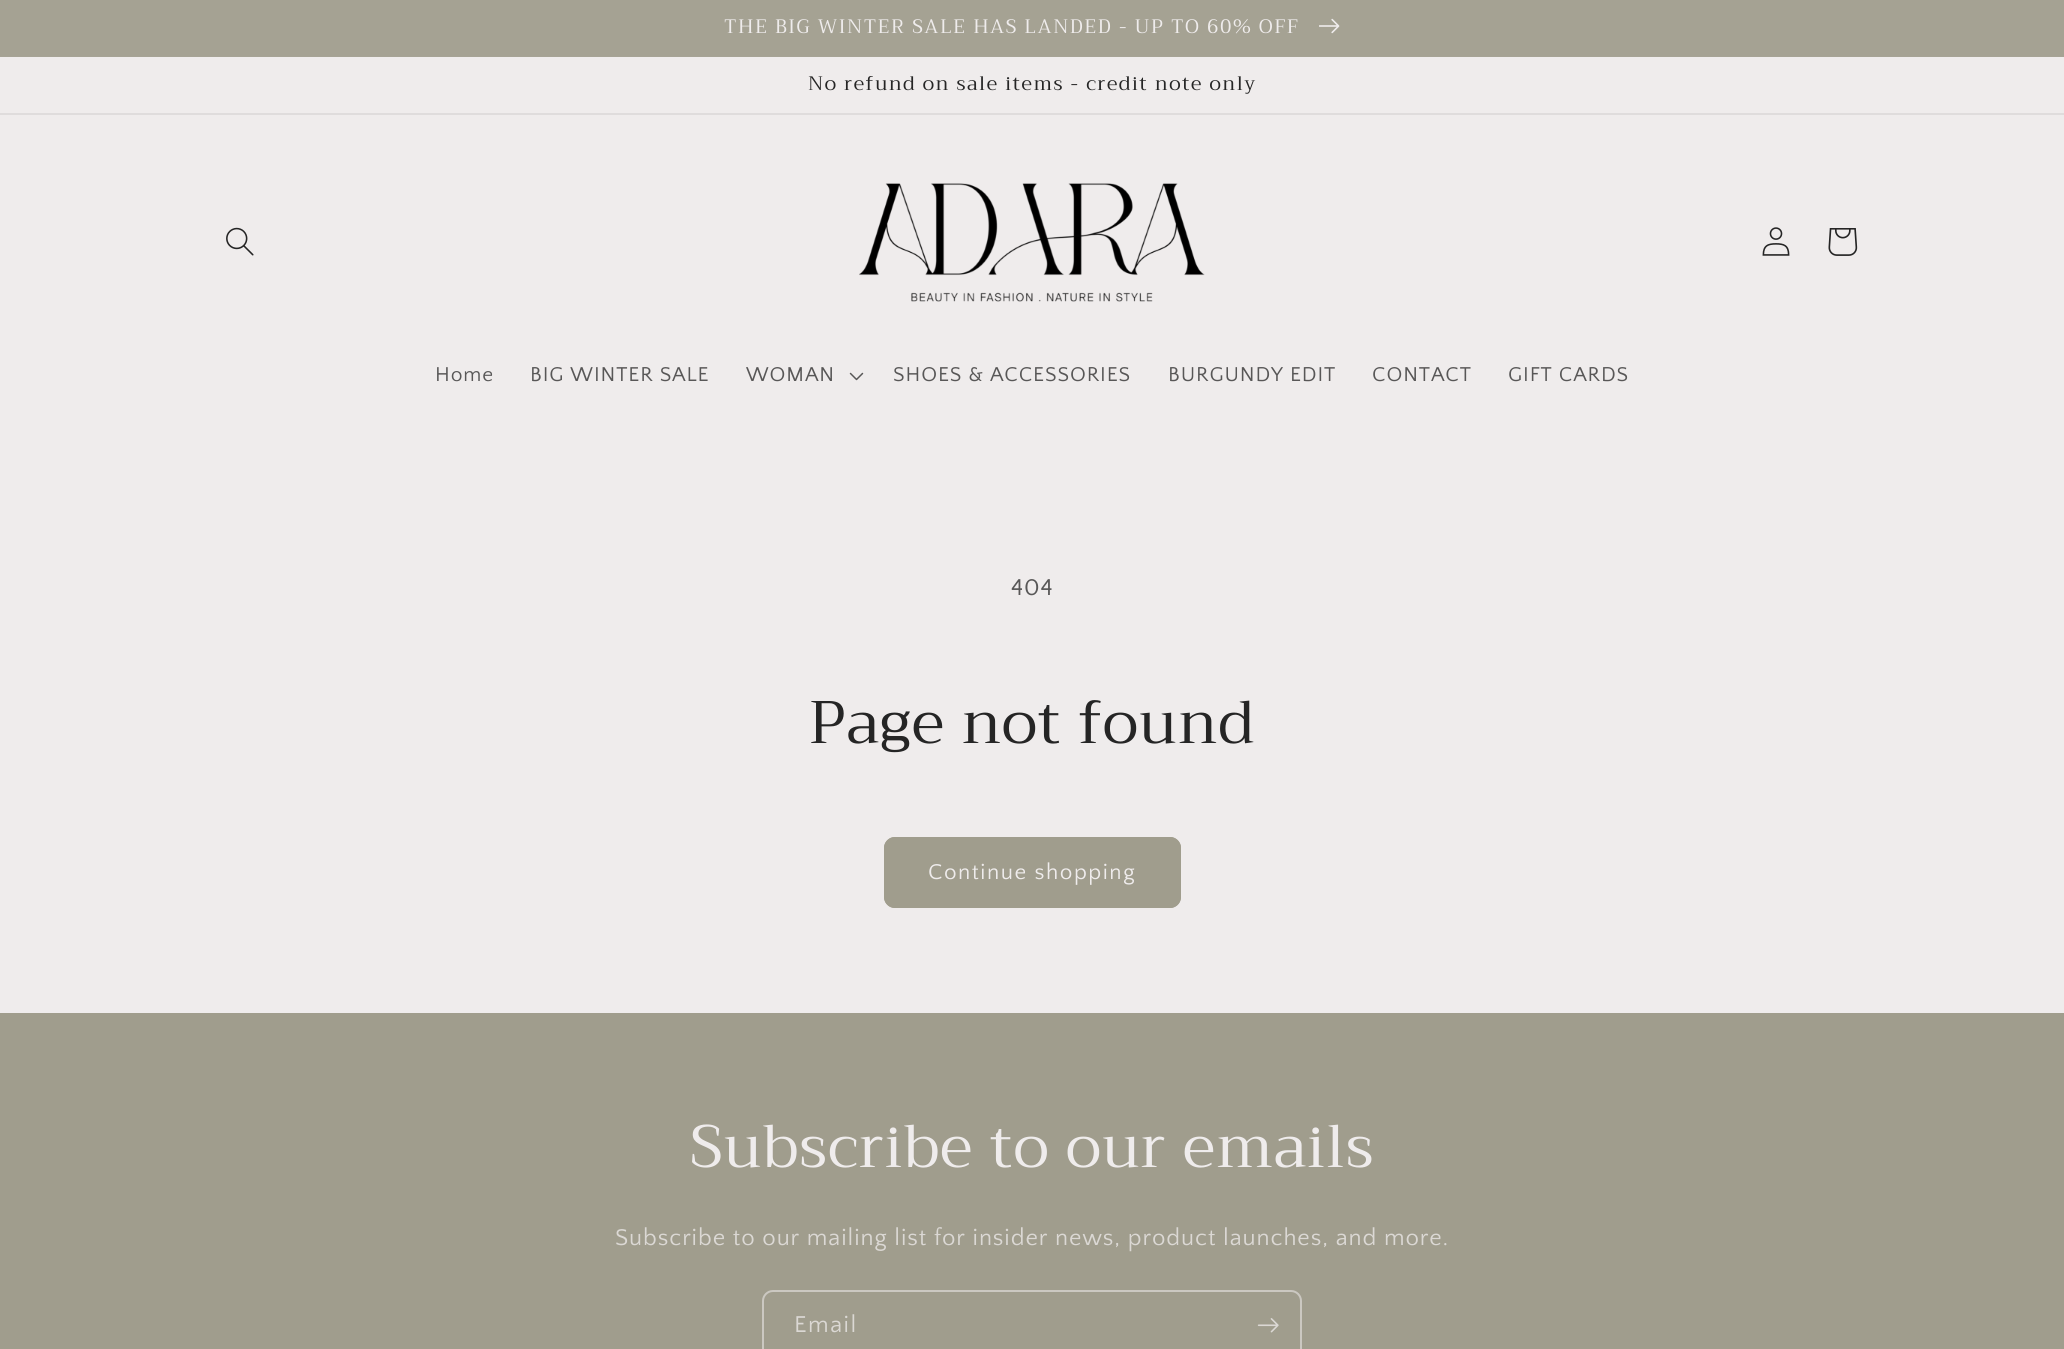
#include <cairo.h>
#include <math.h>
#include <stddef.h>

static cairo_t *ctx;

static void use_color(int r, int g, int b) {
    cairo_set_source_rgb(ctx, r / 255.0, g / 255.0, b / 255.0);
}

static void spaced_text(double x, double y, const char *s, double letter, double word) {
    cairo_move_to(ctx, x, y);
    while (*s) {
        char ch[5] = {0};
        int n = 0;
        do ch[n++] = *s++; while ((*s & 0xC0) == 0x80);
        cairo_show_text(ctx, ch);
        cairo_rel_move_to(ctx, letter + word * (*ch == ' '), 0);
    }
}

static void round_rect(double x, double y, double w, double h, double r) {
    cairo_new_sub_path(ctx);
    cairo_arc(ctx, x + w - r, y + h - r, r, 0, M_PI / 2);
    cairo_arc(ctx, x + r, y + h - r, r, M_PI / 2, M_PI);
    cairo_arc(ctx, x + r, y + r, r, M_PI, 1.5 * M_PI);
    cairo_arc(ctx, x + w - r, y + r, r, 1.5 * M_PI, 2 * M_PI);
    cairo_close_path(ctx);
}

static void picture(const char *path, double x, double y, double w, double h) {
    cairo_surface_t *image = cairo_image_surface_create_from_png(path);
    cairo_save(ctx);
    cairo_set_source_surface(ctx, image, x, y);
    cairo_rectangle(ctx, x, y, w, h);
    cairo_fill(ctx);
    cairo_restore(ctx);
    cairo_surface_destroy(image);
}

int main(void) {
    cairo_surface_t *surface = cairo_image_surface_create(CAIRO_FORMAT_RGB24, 2064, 1349);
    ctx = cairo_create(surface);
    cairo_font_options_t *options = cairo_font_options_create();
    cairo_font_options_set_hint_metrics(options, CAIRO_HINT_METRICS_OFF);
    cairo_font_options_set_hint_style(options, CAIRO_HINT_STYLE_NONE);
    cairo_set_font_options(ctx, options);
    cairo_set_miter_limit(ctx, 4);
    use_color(239, 236, 236);
    cairo_paint(ctx);
    use_color(166, 163, 149);
    cairo_rectangle(ctx, 0, 56, 2064, 1);
    cairo_fill(ctx);
    use_color(165, 162, 147);
    cairo_rectangle(ctx, 0, 0, 2064, 56);
    cairo_fill(ctx);
    cairo_select_font_face(ctx, "Trirong", CAIRO_FONT_SLANT_NORMAL, CAIRO_FONT_WEIGHT_NORMAL);
    cairo_set_font_size(ctx, 19.5);
    use_color(239, 236, 236);
    spaced_text(724, 33, "THE BIG WINTER SALE HAS LANDED - UP TO 60% OFF", 1.5, 0);
    picture("img1.png", 1319, 18, 21, 16);
    use_color(223, 220, 220);
    cairo_rectangle(ctx, 0, 113, 2064, 2);
    cairo_fill(ctx);
    use_color(37, 37, 37);
    spaced_text(808, 90, "No refund on sale items - credit note only", 1.5, 0);
    picture("img2.png", 226, 227, 28, 29);
    picture("img3.png", 859, 183, 346, 119);
    picture("img4.png", 1762, 227, 28, 29);
    picture("img5.png", 1828, 228, 30, 28);
    cairo_select_font_face(ctx, "Quattrocento Sans", CAIRO_FONT_SLANT_NORMAL, CAIRO_FONT_WEIGHT_NORMAL);
    cairo_set_font_size(ctx, 21);
    use_color(88, 87, 87);
    spaced_text(435, 381, "Home", 0.9, 0);
    spaced_text(530, 381, "BIG WINTER SALE", 0.9, 0);
    spaced_text(746, 381, "WOMAN", 0.9, 0);
    picture("img6.png", 849, 372, 15, 9);
    spaced_text(893, 381, "SHOES & ACCESSORIES", 0.9, 0);
    spaced_text(1168, 381, "BURGUNDY EDIT", 0.9, 0);
    spaced_text(1372, 381, "CONTACT", 0.9, 0);
    spaced_text(1508, 381, "GIFT CARDS", 0.9, 0);
    cairo_set_font_size(ctx, 24);
    spaced_text(1011, 595, "404", 0.9, 0);
    cairo_select_font_face(ctx, "Trirong", CAIRO_FONT_SLANT_NORMAL, CAIRO_FONT_WEIGHT_NORMAL);
    cairo_set_font_size(ctx, 60);
    use_color(37, 37, 37);
    spaced_text(809, 743, "Page not found", 0.9, 0);
    use_color(160, 157, 141);
    round_rect(884, 837, 297, 71, 11);
    cairo_fill(ctx);
    round_rect(885, 838, 295, 69, 10);
    cairo_stroke(ctx);
    cairo_select_font_face(ctx, "Quattrocento Sans", CAIRO_FONT_SLANT_NORMAL, CAIRO_FONT_WEIGHT_NORMAL);
    cairo_set_font_size(ctx, 22.5);
    use_color(239, 236, 236);
    spaced_text(928, 879, "Continue shopping", 1.5, 0);
    use_color(160, 157, 141);
    cairo_rectangle(ctx, 0, 1013, 2064, 336);
    cairo_fill(ctx);
    cairo_select_font_face(ctx, "Trirong", CAIRO_FONT_SLANT_NORMAL, CAIRO_FONT_WEIGHT_NORMAL);
    cairo_set_font_size(ctx, 60);
    use_color(239, 236, 236);
    spaced_text(690, 1167, "Subscribe to our emails", 0.9, 0);
    cairo_select_font_face(ctx, "Quattrocento Sans", CAIRO_FONT_SLANT_NORMAL, CAIRO_FONT_WEIGHT_NORMAL);
    cairo_set_font_size(ctx, 24);
    use_color(219, 216, 212);
    spaced_text(615, 1245, "Subscribe to our mailing list for insider news, product launches, and more.", 0.9, 0);
    round_rect(763, 1291, 538, 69, 10);
    use_color(203, 200, 193);
    cairo_stroke(ctx);
    use_color(219, 216, 212);
    spaced_text(794, 1332, "Email", 1.5, 0);
    picture("img7.png", 1257, 1318, 22, 15);
    cairo_surface_write_to_png(surface, "result.png");
    cairo_font_options_destroy(options);
    cairo_destroy(ctx);
    cairo_surface_destroy(surface);
    return 0;
}
